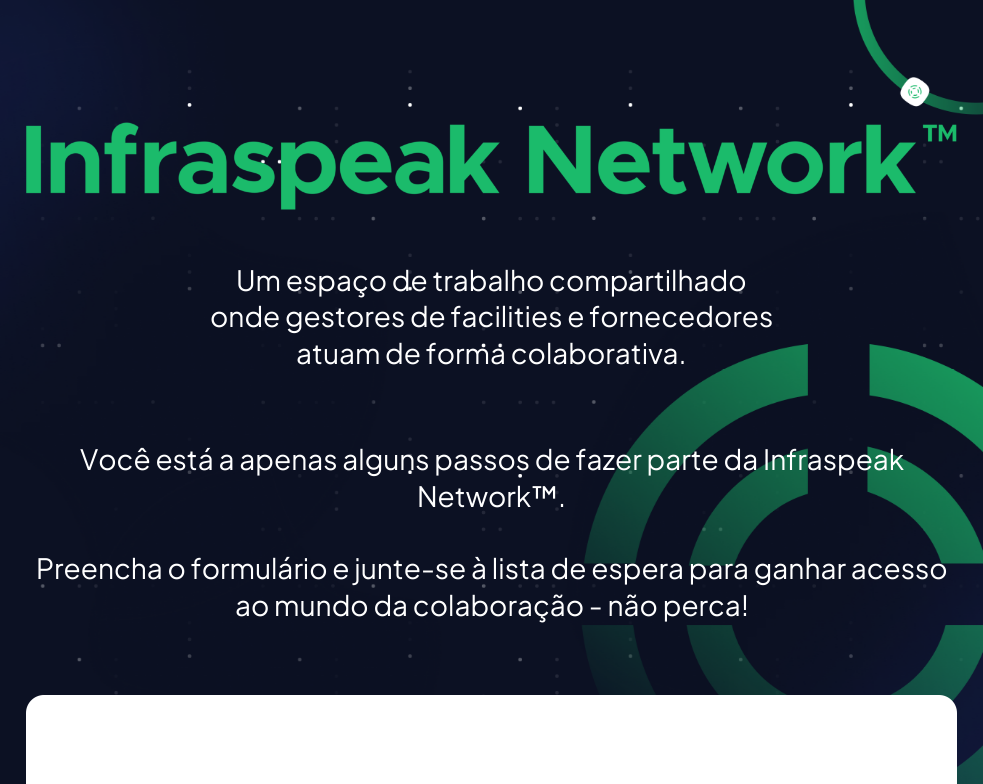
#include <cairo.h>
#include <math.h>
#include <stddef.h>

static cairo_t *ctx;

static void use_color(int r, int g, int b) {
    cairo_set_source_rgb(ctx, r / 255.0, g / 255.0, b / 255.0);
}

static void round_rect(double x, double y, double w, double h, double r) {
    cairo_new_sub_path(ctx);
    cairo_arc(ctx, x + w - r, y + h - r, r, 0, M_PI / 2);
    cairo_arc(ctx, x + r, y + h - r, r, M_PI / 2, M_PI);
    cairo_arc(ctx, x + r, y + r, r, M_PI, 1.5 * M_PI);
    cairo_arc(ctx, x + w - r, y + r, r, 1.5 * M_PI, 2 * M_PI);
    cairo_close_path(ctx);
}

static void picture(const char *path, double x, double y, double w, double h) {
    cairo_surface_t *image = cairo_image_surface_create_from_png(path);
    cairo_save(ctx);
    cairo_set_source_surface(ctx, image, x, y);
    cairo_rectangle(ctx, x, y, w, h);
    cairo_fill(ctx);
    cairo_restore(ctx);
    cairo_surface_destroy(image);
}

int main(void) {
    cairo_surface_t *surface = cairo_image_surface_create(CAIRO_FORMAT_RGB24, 983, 784);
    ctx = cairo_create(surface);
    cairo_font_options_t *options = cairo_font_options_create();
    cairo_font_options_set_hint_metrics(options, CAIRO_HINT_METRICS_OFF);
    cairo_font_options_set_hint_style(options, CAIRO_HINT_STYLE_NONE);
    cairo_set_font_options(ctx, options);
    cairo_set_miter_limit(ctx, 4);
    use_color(255, 255, 255);
    cairo_paint(ctx);
    picture("img1.png", 0, 0, 983, 784);
    picture("img2.png", 26, 122, 931, 88);
    cairo_select_font_face(ctx, "Plus Jakarta Sans", CAIRO_FONT_SLANT_NORMAL, CAIRO_FONT_WEIGHT_NORMAL);
    cairo_set_font_size(ctx, 28);
    use_color(255, 255, 255);
    cairo_move_to(ctx, 236, 291);
    cairo_show_text(ctx, "Um espaço de trabalho compartilhado");
    cairo_move_to(ctx, 210, 327);
    cairo_show_text(ctx, "onde gestores de facilities e fornecedores");
    cairo_move_to(ctx, 296, 364);
    cairo_show_text(ctx, "atuam de forma colaborativa.");
    cairo_move_to(ctx, 80, 470);
    cairo_show_text(ctx, "Você está a apenas alguns passos de fazer parte da Infraspeak");
    cairo_move_to(ctx, 417, 507);
    cairo_show_text(ctx, "Network™.");
    cairo_move_to(ctx, 36, 579);
    cairo_show_text(ctx, "Preencha o formulário e junte-se à lista de espera para ganhar acesso");
    cairo_move_to(ctx, 235, 616);
    cairo_show_text(ctx, "ao mundo da colaboração - não perca!");
    round_rect(26, 695, 931, 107, 18);
    cairo_fill(ctx);
    cairo_surface_write_to_png(surface, "result.png");
    cairo_font_options_destroy(options);
    cairo_destroy(ctx);
    cairo_surface_destroy(surface);
    return 0;
}
